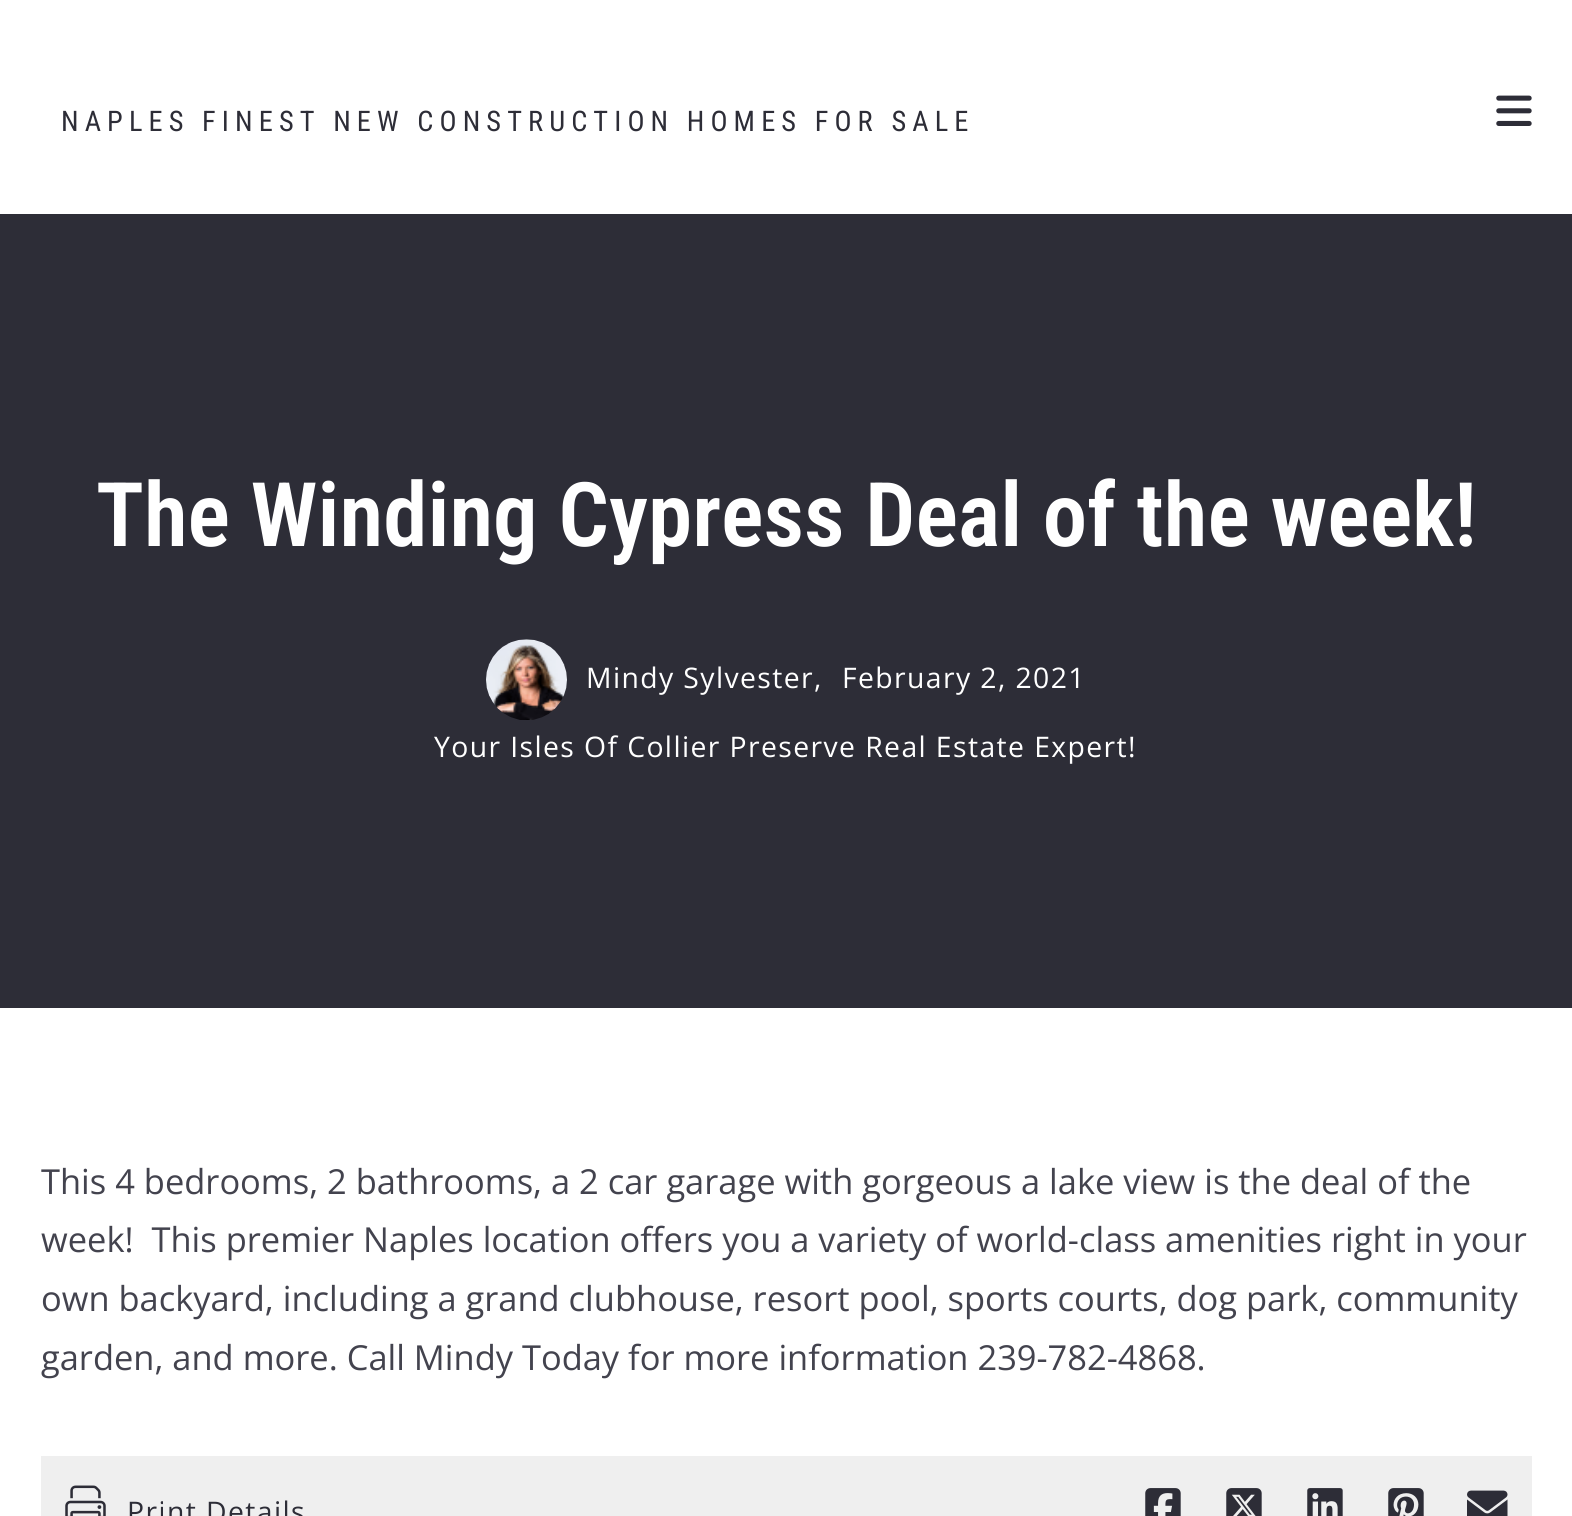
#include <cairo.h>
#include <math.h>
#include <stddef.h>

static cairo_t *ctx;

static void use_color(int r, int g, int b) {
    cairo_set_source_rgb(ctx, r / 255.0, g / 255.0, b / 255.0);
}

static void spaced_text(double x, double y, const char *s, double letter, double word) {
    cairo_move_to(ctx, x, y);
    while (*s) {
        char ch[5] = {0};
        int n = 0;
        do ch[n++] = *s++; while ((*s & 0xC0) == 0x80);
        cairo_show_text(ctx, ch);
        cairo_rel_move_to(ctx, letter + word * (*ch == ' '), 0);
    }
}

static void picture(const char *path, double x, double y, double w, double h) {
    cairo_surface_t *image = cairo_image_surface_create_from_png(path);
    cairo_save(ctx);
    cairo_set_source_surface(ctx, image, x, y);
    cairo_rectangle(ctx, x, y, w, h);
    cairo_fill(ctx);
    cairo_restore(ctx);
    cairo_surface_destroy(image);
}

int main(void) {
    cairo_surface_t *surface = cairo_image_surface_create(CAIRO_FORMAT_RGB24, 1572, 1516);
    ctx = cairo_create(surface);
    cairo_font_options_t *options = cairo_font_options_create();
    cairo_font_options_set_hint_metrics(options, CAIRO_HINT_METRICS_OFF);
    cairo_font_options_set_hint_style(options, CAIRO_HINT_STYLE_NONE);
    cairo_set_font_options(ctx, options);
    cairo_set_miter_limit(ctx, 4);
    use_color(255, 255, 255);
    cairo_paint(ctx);
    cairo_select_font_face(ctx, "Roboto Condensed", CAIRO_FONT_SLANT_NORMAL, CAIRO_FONT_WEIGHT_NORMAL);
    cairo_set_font_size(ctx, 28.35);
    use_color(45, 45, 55);
    spaced_text(61, 131, "NAPLES FINEST NEW CONSTRUCTION HOMES FOR SALE", 6.1, 0);
    picture("img1.png", 1496, 95, 36, 31);
    cairo_rectangle(ctx, 0, 214, 1572, 794);
    cairo_fill(ctx);
    cairo_select_font_face(ctx, "Roboto Condensed SemiBold", CAIRO_FONT_SLANT_NORMAL, CAIRO_FONT_WEIGHT_NORMAL);
    cairo_set_font_size(ctx, 89.1);
    use_color(255, 255, 255);
    cairo_move_to(ctx, 96, 546);
    cairo_show_text(ctx, "The Winding Cypress Deal of the week!");
    picture("img2.png", 486, 639, 81, 81);
    cairo_select_font_face(ctx, "Open Sans", CAIRO_FONT_SLANT_NORMAL, CAIRO_FONT_WEIGHT_NORMAL);
    cairo_set_font_size(ctx, 28.35);
    spaced_text(586, 688, "Mindy Sylvester,", 1.4, 0);
    spaced_text(842, 688, "February 2, 2021", 1.4, 0);
    spaced_text(434, 757, "Your Isles Of Collier Preserve Real Estate Expert!", 1.4, 0);
    cairo_set_font_size(ctx, 34.45);
    use_color(67, 67, 78);
    cairo_move_to(ctx, 41, 1194);
    cairo_show_text(ctx, "This 4 bedrooms, 2 bathrooms, a 2 car garage with gorgeous a lake view is the deal of the");
    cairo_move_to(ctx, 41, 1252);
    cairo_show_text(ctx, "week!  This premier Naples location offers you a variety of world-class amenities right in your");
    cairo_move_to(ctx, 41, 1311);
    cairo_show_text(ctx, "own backyard, including a grand clubhouse, resort pool, sports courts, dog park, community");
    cairo_move_to(ctx, 41, 1370);
    cairo_show_text(ctx, "garden, and more. Call Mindy Today for more information 239-782-4868.");
    use_color(239, 239, 239);
    cairo_rectangle(ctx, 41, 1456, 1491, 60);
    cairo_fill(ctx);
    picture("img3.png", 65, 1485, 41, 31);
    cairo_set_font_size(ctx, 28.35);
    use_color(45, 45, 55);
    spaced_text(127, 1522, "Print Details", 1.4, 0);
    picture("img4.png", 1145, 1488, 36, 28);
    picture("img5.png", 1226, 1488, 36, 28);
    picture("img6.png", 1307, 1488, 36, 28);
    picture("img7.png", 1388, 1488, 36, 28);
    picture("img8.png", 1467, 1490, 41, 26);
    cairo_surface_write_to_png(surface, "result.png");
    cairo_font_options_destroy(options);
    cairo_destroy(ctx);
    cairo_surface_destroy(surface);
    return 0;
}
